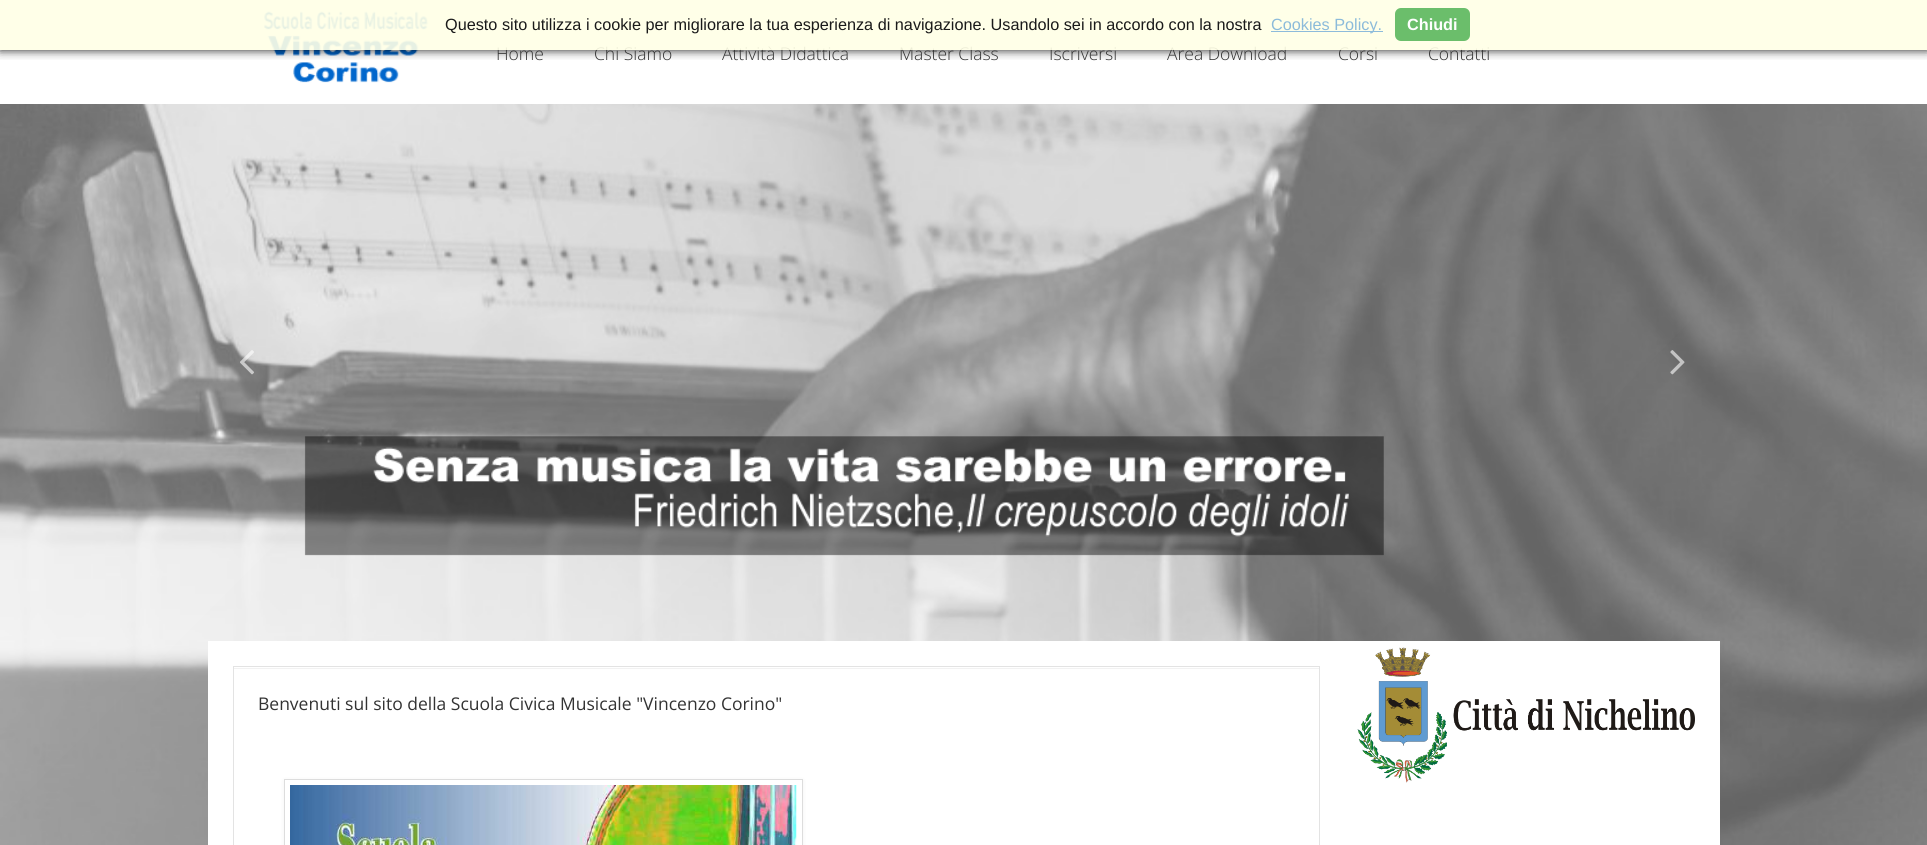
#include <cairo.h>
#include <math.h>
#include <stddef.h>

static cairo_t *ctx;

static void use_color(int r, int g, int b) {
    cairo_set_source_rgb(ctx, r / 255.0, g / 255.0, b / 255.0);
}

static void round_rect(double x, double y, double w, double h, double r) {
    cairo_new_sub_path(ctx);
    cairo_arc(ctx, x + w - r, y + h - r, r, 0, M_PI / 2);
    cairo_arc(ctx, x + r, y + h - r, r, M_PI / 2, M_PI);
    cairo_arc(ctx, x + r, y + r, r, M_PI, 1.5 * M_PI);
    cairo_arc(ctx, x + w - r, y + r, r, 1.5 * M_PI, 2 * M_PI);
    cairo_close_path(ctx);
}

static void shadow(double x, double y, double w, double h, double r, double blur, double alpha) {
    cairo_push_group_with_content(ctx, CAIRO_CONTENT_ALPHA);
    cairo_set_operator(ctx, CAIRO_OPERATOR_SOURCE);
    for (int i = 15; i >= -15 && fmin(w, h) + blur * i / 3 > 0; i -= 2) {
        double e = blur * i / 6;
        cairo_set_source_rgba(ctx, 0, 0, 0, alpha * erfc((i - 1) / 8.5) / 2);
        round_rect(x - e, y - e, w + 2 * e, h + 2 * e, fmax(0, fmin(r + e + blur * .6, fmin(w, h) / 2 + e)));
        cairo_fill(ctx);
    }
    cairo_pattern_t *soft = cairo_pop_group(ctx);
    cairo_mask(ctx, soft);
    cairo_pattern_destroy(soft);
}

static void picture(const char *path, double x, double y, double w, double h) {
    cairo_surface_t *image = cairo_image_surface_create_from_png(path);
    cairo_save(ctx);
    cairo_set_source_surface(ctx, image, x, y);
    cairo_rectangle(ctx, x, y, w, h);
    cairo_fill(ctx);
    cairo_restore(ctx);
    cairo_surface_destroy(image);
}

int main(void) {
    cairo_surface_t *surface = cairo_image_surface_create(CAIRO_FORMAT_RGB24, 1927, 845);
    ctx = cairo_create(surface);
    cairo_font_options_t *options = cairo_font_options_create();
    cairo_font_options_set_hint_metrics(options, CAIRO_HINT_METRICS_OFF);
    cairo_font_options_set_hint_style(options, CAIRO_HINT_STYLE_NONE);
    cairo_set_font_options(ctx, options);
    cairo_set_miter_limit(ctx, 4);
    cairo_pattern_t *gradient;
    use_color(255, 255, 255);
    cairo_paint(ctx);
    gradient = cairo_pattern_create_linear(-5.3, 5.3, 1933, 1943);
    cairo_pattern_add_color_stop_rgba(gradient, 0, 1, 1, 1, 1);
    cairo_pattern_add_color_stop_rgba(gradient, 1, 0.898, 0.898, 0.898, 1);
    cairo_set_source(ctx, gradient);
    cairo_pattern_destroy(gradient);
    cairo_rectangle(ctx, 0, 104, 1927, 741);
    cairo_fill(ctx);
    picture("img1.png", 264, 11, 165, 72);
    cairo_save(ctx);
    cairo_rectangle(ctx, 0, 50, 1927, 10);
    cairo_clip(ctx);
    use_color(0, 0, 0);
    shadow(0, 0, 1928, 50, 0, 5, 0.9);
    cairo_restore(ctx);
    cairo_select_font_face(ctx, "Open Sans Light", CAIRO_FONT_SLANT_NORMAL, CAIRO_FONT_WEIGHT_NORMAL);
    cairo_set_font_size(ctx, 17.5);
    use_color(51, 51, 51);
    cairo_move_to(ctx, 496, 60);
    cairo_show_text(ctx, "Home");
    cairo_move_to(ctx, 594, 60);
    cairo_show_text(ctx, "Chi Siamo");
    cairo_move_to(ctx, 722, 60);
    cairo_show_text(ctx, "Attività Didattica");
    cairo_move_to(ctx, 899, 60);
    cairo_show_text(ctx, "Master Class");
    cairo_move_to(ctx, 1049, 60);
    cairo_show_text(ctx, "Iscriversi");
    cairo_move_to(ctx, 1167, 60);
    cairo_show_text(ctx, "Area Download");
    cairo_move_to(ctx, 1338, 60);
    cairo_show_text(ctx, "Corsi");
    cairo_move_to(ctx, 1428, 60);
    cairo_show_text(ctx, "Contatti");
    cairo_set_source_rgba(ctx, 1, 1, 0.902, 0.9);
    cairo_rectangle(ctx, 0, 0, 1927, 50);
    cairo_fill(ctx);
    cairo_select_font_face(ctx, "Liberation Sans", CAIRO_FONT_SLANT_NORMAL, CAIRO_FONT_WEIGHT_NORMAL);
    cairo_set_font_size(ctx, 16.25);
    use_color(26, 26, 26);
    cairo_move_to(ctx, 445, 30);
    cairo_show_text(ctx, "Questo sito utilizza i cookie per migliorare la tua esperienza di navigazione. Usandolo sei in accordo con la nostra");
    use_color(141, 187, 219);
    cairo_rectangle(ctx, 1271, 31, 112, 1);
    cairo_fill(ctx);
    use_color(140, 187, 218);
    cairo_move_to(ctx, 1271, 30);
    cairo_show_text(ctx, "Cookies Policy.");
    use_color(107, 190, 107);
    round_rect(1395, 8, 75, 33, 6);
    cairo_fill(ctx);
    cairo_select_font_face(ctx, "Liberation Sans", CAIRO_FONT_SLANT_NORMAL, CAIRO_FONT_WEIGHT_BOLD);
    use_color(255, 255, 255);
    cairo_move_to(ctx, 1407, 30);
    cairo_show_text(ctx, "Chiudi");
    picture("img2.png", 0, 104, 1927, 741);
    picture("img3.png", 240, 350, 14, 25);
    picture("img4.png", 1670, 350, 15, 25);
    picture("img5.png", 304, 436, 1080, 120);
    cairo_rectangle(ctx, 208, 641, 1512, 204);
    cairo_fill(ctx);
    use_color(242, 242, 242);
    cairo_rectangle(ctx, 234, 668, 1085, 1);
    cairo_fill(ctx);
    cairo_rectangle(ctx, 233.5, 666.5, 1086, 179);
    use_color(227, 227, 227);
    cairo_set_line_width(ctx, 1);
    cairo_stroke(ctx);
    cairo_select_font_face(ctx, "Open Sans", CAIRO_FONT_SLANT_NORMAL, CAIRO_FONT_WEIGHT_NORMAL);
    cairo_set_font_size(ctx, 17.5);
    use_color(51, 51, 51);
    cairo_move_to(ctx, 258, 710);
    cairo_show_text(ctx, "Benvenuti sul sito della Scuola Civica Musicale \"Vincenzo Corino\"");
    use_color(0, 0, 0);
    shadow(284, 780, 519, 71, 0, 2, 0.06);
    use_color(255, 255, 255);
    cairo_rectangle(ctx, 284.5, 779.5, 518, 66);
    cairo_fill_preserve(ctx);
    use_color(221, 221, 221);
    cairo_stroke(ctx);
    picture("img6.png", 290, 785, 507, 60);
    picture("img7.png", 1357, 647, 338, 136);
    cairo_surface_write_to_png(surface, "result.png");
    cairo_font_options_destroy(options);
    cairo_destroy(ctx);
    cairo_surface_destroy(surface);
    return 0;
}
